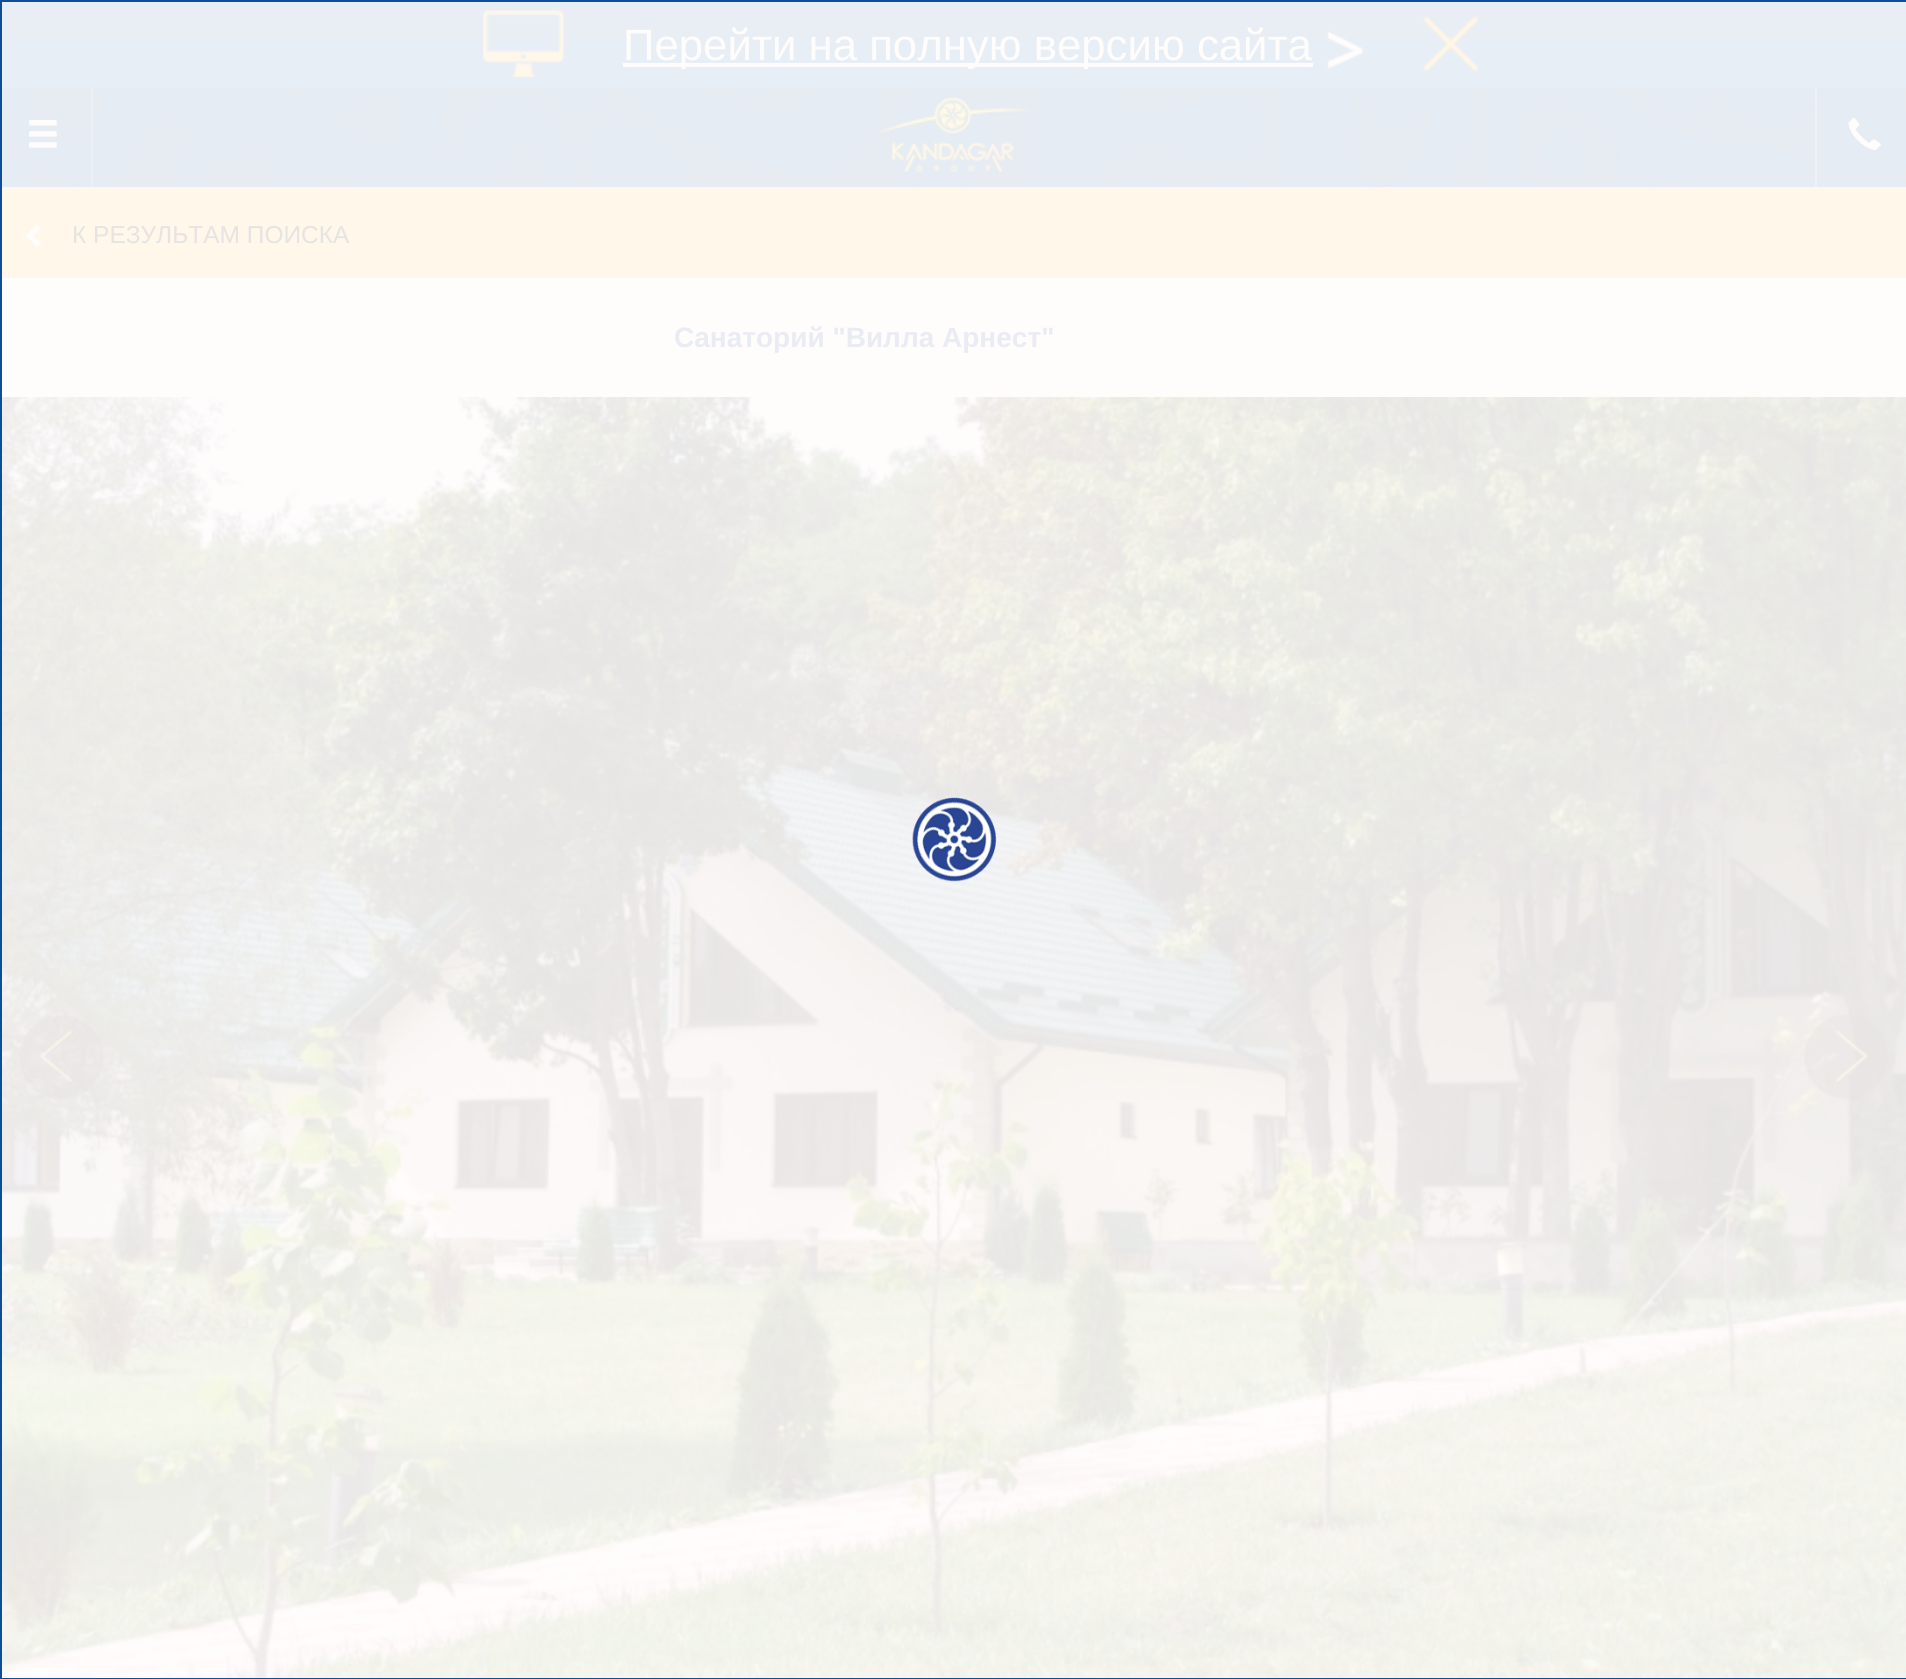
#include <cairo.h>
#include <math.h>
#include <stddef.h>

static cairo_t *ctx;

static void use_color(int r, int g, int b) {
    cairo_set_source_rgb(ctx, r / 255.0, g / 255.0, b / 255.0);
}

static void picture(const char *path, double x, double y, double w, double h) {
    cairo_surface_t *image = cairo_image_surface_create_from_png(path);
    cairo_save(ctx);
    cairo_set_source_surface(ctx, image, x, y);
    cairo_rectangle(ctx, x, y, w, h);
    cairo_fill(ctx);
    cairo_restore(ctx);
    cairo_surface_destroy(image);
}

int main(void) {
    cairo_surface_t *surface = cairo_image_surface_create(CAIRO_FORMAT_RGB24, 1906, 1679);
    ctx = cairo_create(surface);
    cairo_font_options_t *options = cairo_font_options_create();
    cairo_font_options_set_hint_metrics(options, CAIRO_HINT_METRICS_OFF);
    cairo_font_options_set_hint_style(options, CAIRO_HINT_STYLE_NONE);
    cairo_set_font_options(ctx, options);
    cairo_set_miter_limit(ctx, 4);
    use_color(255, 252, 252);
    cairo_paint(ctx);
    use_color(232, 238, 244);
    cairo_rectangle(ctx, 2, 2, 1904, 86);
    cairo_fill(ctx);
    picture("img2.png", 2, 40, 1904, 48);
    picture("img3.png", 483, 10, 81, 67);
    use_color(255, 252, 252);
    cairo_rectangle(ctx, 623, 63, 690, 4);
    cairo_fill(ctx);
    picture("img4.png", 1326, 31, 38, 38);
    picture("img5.png", 1422, 15, 57, 57);
    picture("img6.png", 2, 88, 1904, 99);
    cairo_set_source_rgba(ctx, 1, 0.988, 0.988, 0.3);
    cairo_rectangle(ctx, 91, 88, 2, 99);
    cairo_fill(ctx);
    picture("img7.png", 29, 120, 28, 28);
    picture("img8.png", 877, 97, 155, 77);
    cairo_rectangle(ctx, 1815, 88, 2, 99);
    cairo_fill(ctx);
    picture("img9.png", 1848, 117, 33, 34);
    use_color(254, 247, 234);
    cairo_rectangle(ctx, 2, 187, 1904, 91);
    cairo_fill(ctx);
    use_color(255, 252, 252);
    cairo_new_path(ctx);
    cairo_move_to(ctx, 41, 228.5);
    cairo_line_to(ctx, 33.5, 235.5);
    cairo_line_to(ctx, 41, 243);
    cairo_line_to(ctx, 37, 247);
    cairo_line_to(ctx, 25.5, 235.5);
    cairo_line_to(ctx, 37, 224.5);
    cairo_close_path(ctx);
    cairo_fill(ctx);
    picture("img10.png", 2, 397, 1904, 1281);
    picture("img11.png", 19, 1014, 85, 86);
    picture("img12.png", 1804, 1014, 85, 86);
    cairo_rectangle(ctx, 1, 1, 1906, 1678);
    use_color(13, 78, 150);
    cairo_stroke(ctx);
    picture("img1.png", 912, 796, 85, 86);
    cairo_select_font_face(ctx, "Liberation Sans", CAIRO_FONT_SLANT_NORMAL, CAIRO_FONT_WEIGHT_NORMAL);
    cairo_set_font_size(ctx, 43.75);
    use_color(255, 252, 252);
    cairo_move_to(ctx, 623, 60);
    cairo_show_text(ctx, "Перейти на полную версию сайта");
    cairo_set_font_size(ctx, 24.5);
    use_color(230, 227, 227);
    cairo_move_to(ctx, 72, 243);
    cairo_show_text(ctx, "К РЕЗУЛЬТАМ ПОИСКА");
    cairo_select_font_face(ctx, "Liberation Sans", CAIRO_FONT_SLANT_NORMAL, CAIRO_FONT_WEIGHT_BOLD);
    cairo_set_font_size(ctx, 28);
    use_color(233, 236, 243);
    cairo_move_to(ctx, 674, 347);
    cairo_show_text(ctx, "Санаторий \"Вилла Арнест\"");
    cairo_surface_write_to_png(surface, "result.png");
    cairo_font_options_destroy(options);
    cairo_destroy(ctx);
    cairo_surface_destroy(surface);
    return 0;
}
